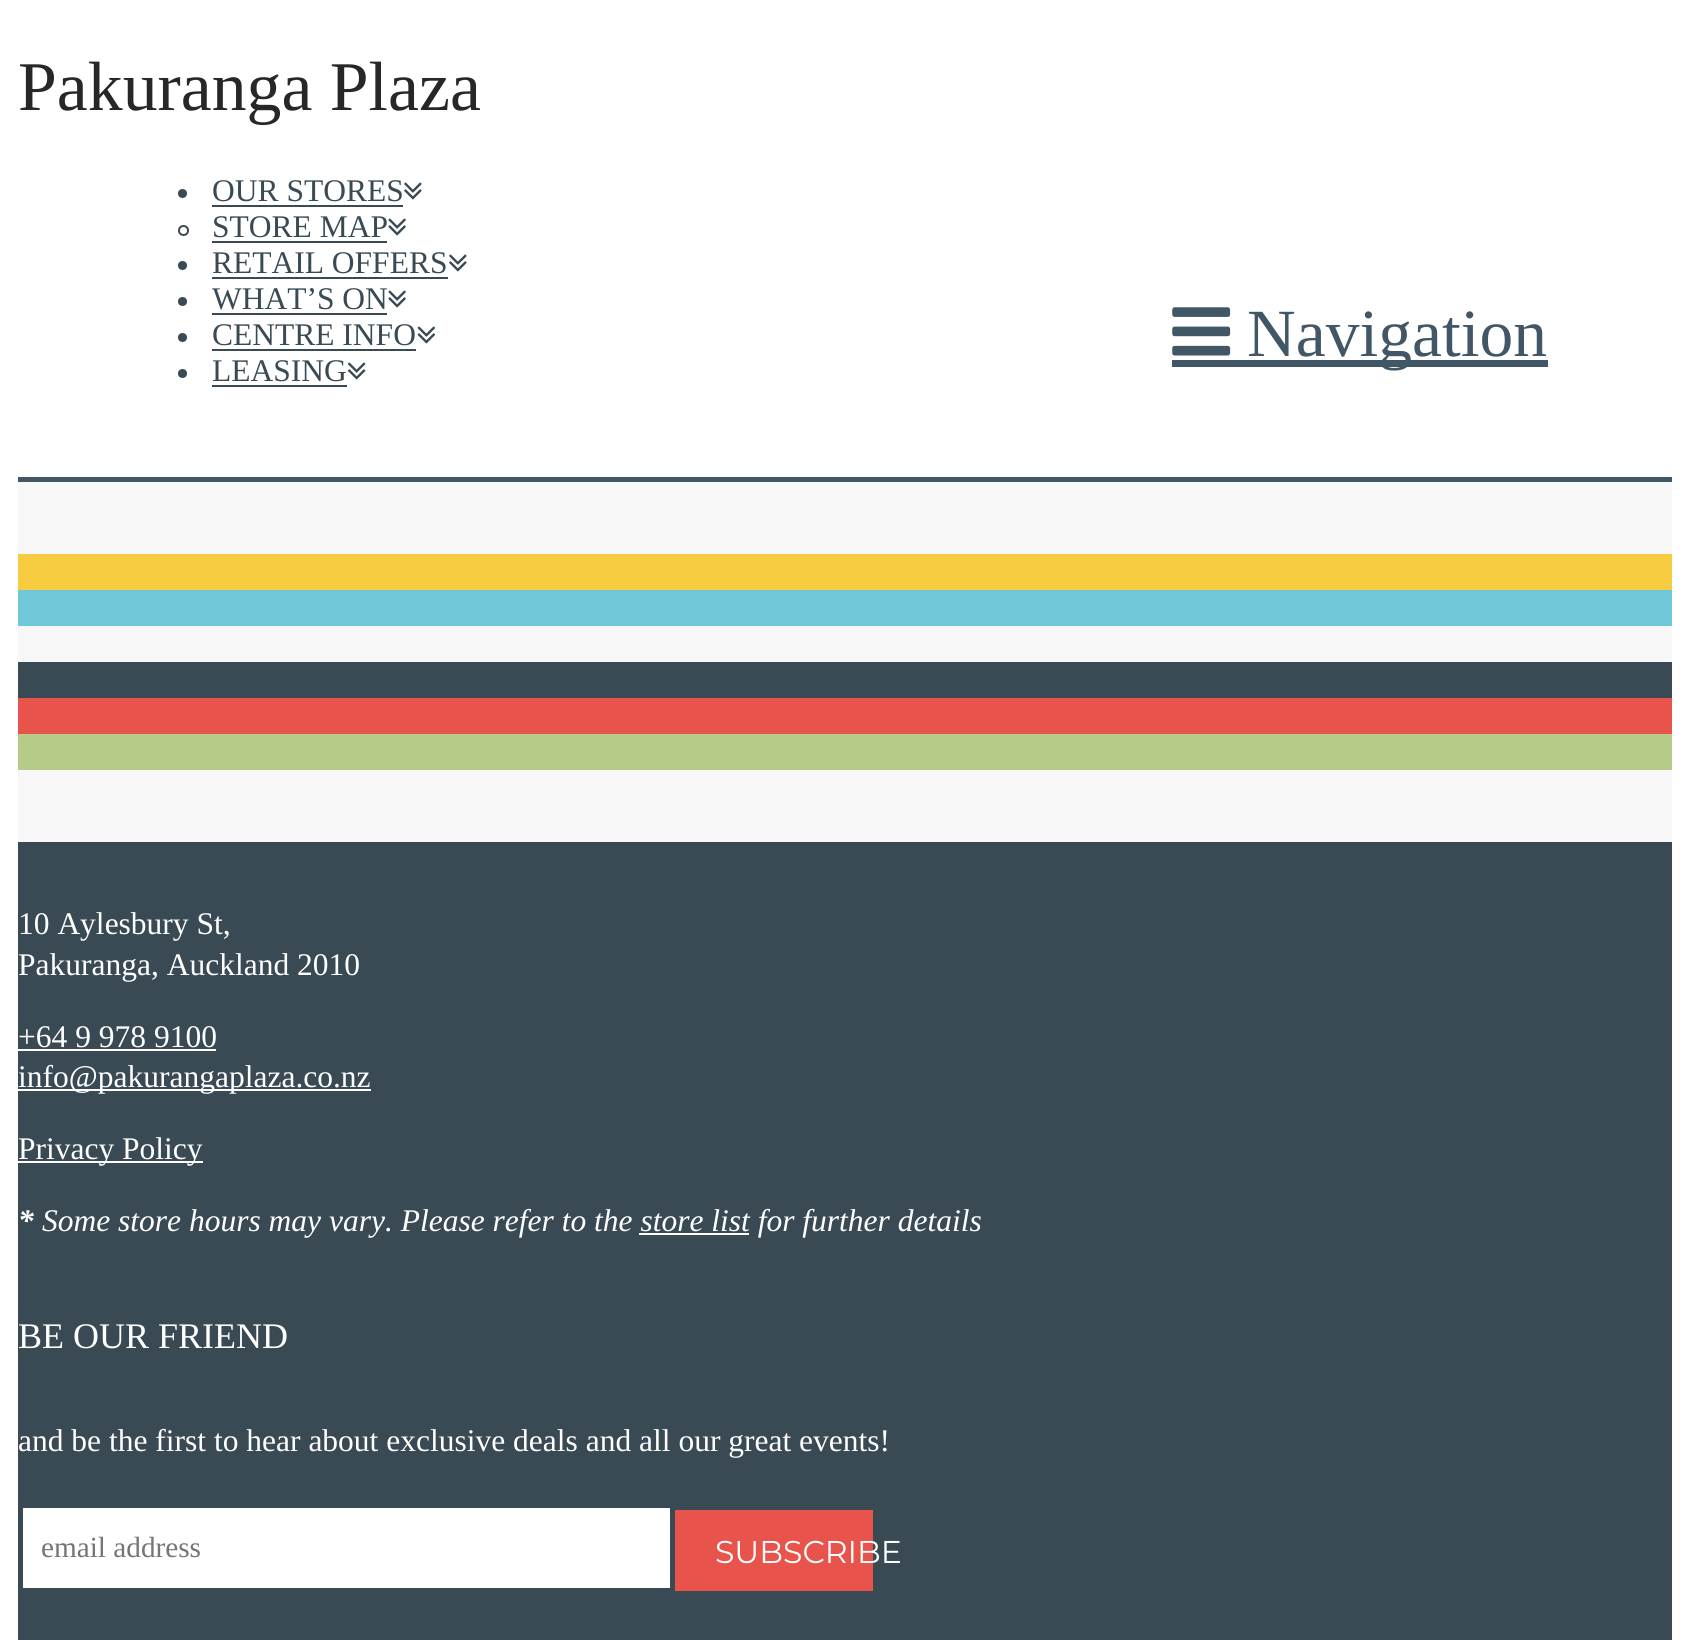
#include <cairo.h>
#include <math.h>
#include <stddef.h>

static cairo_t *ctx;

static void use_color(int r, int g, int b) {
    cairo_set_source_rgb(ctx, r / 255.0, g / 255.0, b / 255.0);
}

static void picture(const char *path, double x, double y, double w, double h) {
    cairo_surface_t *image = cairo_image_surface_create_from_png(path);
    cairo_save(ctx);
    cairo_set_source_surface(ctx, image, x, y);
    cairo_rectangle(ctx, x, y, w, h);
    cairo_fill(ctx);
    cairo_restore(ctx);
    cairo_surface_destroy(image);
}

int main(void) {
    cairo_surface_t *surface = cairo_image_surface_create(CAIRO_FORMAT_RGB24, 1689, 1640);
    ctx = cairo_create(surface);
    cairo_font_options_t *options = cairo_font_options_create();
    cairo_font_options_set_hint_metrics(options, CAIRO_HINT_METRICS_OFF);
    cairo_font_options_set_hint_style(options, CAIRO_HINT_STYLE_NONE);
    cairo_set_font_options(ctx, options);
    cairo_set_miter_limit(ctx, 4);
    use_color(255, 255, 255);
    cairo_paint(ctx);
    use_color(65, 87, 102);
    cairo_rectangle(ctx, 18, 477, 1654, 5);
    cairo_fill(ctx);
    cairo_select_font_face(ctx, "Liberation Serif", CAIRO_FONT_SLANT_NORMAL, CAIRO_FONT_WEIGHT_NORMAL);
    cairo_set_font_size(ctx, 69.75);
    use_color(39, 39, 39);
    cairo_move_to(ctx, 18, 110);
    cairo_show_text(ctx, "Pakuranga Plaza");
    use_color(57, 74, 84);
    cairo_new_path(ctx);
    cairo_arc(ctx, 182.5, 193.5, 4.5, 0, 2 * M_PI);
    cairo_fill(ctx);
    cairo_set_font_size(ctx, 31.5);
    cairo_move_to(ctx, 212, 201);
    cairo_show_text(ctx, "OUR STORES");
    cairo_rectangle(ctx, 212, 205, 191, 2);
    cairo_fill(ctx);
    picture("img1.png", 404, 182, 18, 18);
    cairo_arc(ctx, 183.5, 230.5, 4.5, 0, 2 * M_PI);
    cairo_stroke(ctx);
    cairo_move_to(ctx, 212, 237);
    cairo_show_text(ctx, "STORE MAP");
    cairo_rectangle(ctx, 212, 241, 175, 2);
    cairo_fill(ctx);
    picture("img2.png", 388, 218, 18, 18);
    cairo_arc(ctx, 182.5, 265.5, 4.5, 0, 2 * M_PI);
    cairo_fill(ctx);
    cairo_move_to(ctx, 212, 273);
    cairo_show_text(ctx, "RETAIL OFFERS");
    cairo_rectangle(ctx, 212, 277, 236, 2);
    cairo_fill(ctx);
    picture("img1.png", 449, 254, 18, 18);
    cairo_arc(ctx, 182.5, 301.5, 4.5, 0, 2 * M_PI);
    cairo_fill(ctx);
    cairo_move_to(ctx, 212, 309);
    cairo_show_text(ctx, "WHAT’S ON");
    cairo_rectangle(ctx, 212, 313, 175, 2);
    cairo_fill(ctx);
    picture("img2.png", 388, 290, 18, 18);
    cairo_arc(ctx, 182.5, 337.5, 4.5, 0, 2 * M_PI);
    cairo_fill(ctx);
    cairo_move_to(ctx, 212, 345);
    cairo_show_text(ctx, "CENTRE INFO");
    cairo_rectangle(ctx, 212, 349, 204, 2);
    cairo_fill(ctx);
    picture("img3.png", 417, 326, 19, 18);
    cairo_arc(ctx, 182.5, 373.5, 4.5, 0, 2 * M_PI);
    cairo_fill(ctx);
    cairo_move_to(ctx, 212, 381);
    cairo_show_text(ctx, "LEASING");
    cairo_rectangle(ctx, 212, 385, 135, 2);
    cairo_fill(ctx);
    picture("img4.png", 347, 362, 19, 18);
    use_color(65, 87, 102);
    cairo_rectangle(ctx, 1172, 360, 376, 7);
    cairo_fill(ctx);
    picture("img5.png", 1172, 307, 59, 49);
    cairo_set_font_size(ctx, 67.5);
    cairo_move_to(ctx, 1247, 356);
    cairo_show_text(ctx, "Navigation");
    use_color(248, 248, 248);
    cairo_rectangle(ctx, 18, 482, 1654, 72);
    cairo_fill(ctx);
    use_color(248, 204, 65);
    cairo_rectangle(ctx, 18, 554, 1654, 36);
    cairo_fill(ctx);
    use_color(111, 199, 218);
    cairo_rectangle(ctx, 18, 590, 1654, 36);
    cairo_fill(ctx);
    use_color(248, 248, 248);
    cairo_rectangle(ctx, 18, 626, 1654, 36);
    cairo_fill(ctx);
    use_color(57, 74, 84);
    cairo_rectangle(ctx, 18, 662, 1654, 36);
    cairo_fill(ctx);
    use_color(248, 248, 248);
    cairo_rectangle(ctx, 18, 770, 1654, 72);
    cairo_fill(ctx);
    use_color(232, 83, 75);
    cairo_rectangle(ctx, 18, 698, 1654, 36);
    cairo_fill(ctx);
    use_color(183, 203, 136);
    cairo_rectangle(ctx, 18, 734, 1654, 36);
    cairo_fill(ctx);
    use_color(57, 74, 84);
    cairo_rectangle(ctx, 18, 842, 1654, 798);
    cairo_fill(ctx);
    cairo_set_font_size(ctx, 31.5);
    use_color(255, 255, 255);
    cairo_move_to(ctx, 18, 934);
    cairo_show_text(ctx, "10 Aylesbury St,");
    cairo_move_to(ctx, 18, 975);
    cairo_show_text(ctx, "Pakuranga, Auckland 2010");
    cairo_move_to(ctx, 18, 1047);
    cairo_show_text(ctx, "+64 9 978 9100");
    cairo_rectangle(ctx, 18, 1049, 198, 2);
    cairo_fill(ctx);
    cairo_rectangle(ctx, 18, 1089, 353, 2);
    cairo_fill(ctx);
    cairo_move_to(ctx, 18, 1087);
    cairo_show_text(ctx, "info@pakurangaplaza.co.nz");
    cairo_rectangle(ctx, 18, 1161, 185, 2);
    cairo_fill(ctx);
    cairo_move_to(ctx, 18, 1159);
    cairo_show_text(ctx, "Privacy Policy");
    cairo_select_font_face(ctx, "Liberation Serif", CAIRO_FONT_SLANT_ITALIC, CAIRO_FONT_WEIGHT_BOLD);
    cairo_move_to(ctx, 18, 1231);
    cairo_show_text(ctx, "*");
    cairo_select_font_face(ctx, "Liberation Serif", CAIRO_FONT_SLANT_ITALIC, CAIRO_FONT_WEIGHT_NORMAL);
    cairo_move_to(ctx, 42, 1231);
    cairo_show_text(ctx, "Some store hours may vary. Please refer to the store list for further details");
    cairo_rectangle(ctx, 639, 1233, 110, 2);
    cairo_fill(ctx);
    cairo_select_font_face(ctx, "Liberation Serif", CAIRO_FONT_SLANT_NORMAL, CAIRO_FONT_WEIGHT_NORMAL);
    cairo_set_font_size(ctx, 36);
    cairo_move_to(ctx, 18, 1348);
    cairo_show_text(ctx, "BE OUR FRIEND");
    cairo_set_font_size(ctx, 31.5);
    cairo_move_to(ctx, 18, 1451);
    cairo_show_text(ctx, "and be the first to hear about exclusive deals and all our great events!");
    cairo_rectangle(ctx, 23, 1508, 647, 80);
    cairo_fill(ctx);
    cairo_set_font_size(ctx, 29.25);
    use_color(117, 117, 117);
    cairo_move_to(ctx, 41, 1557);
    cairo_show_text(ctx, "email address");
    use_color(232, 83, 75);
    cairo_rectangle(ctx, 675, 1510, 198, 81);
    cairo_fill(ctx);
    cairo_select_font_face(ctx, "Montserrat", CAIRO_FONT_SLANT_NORMAL, CAIRO_FONT_WEIGHT_NORMAL);
    cairo_set_font_size(ctx, 31.5);
    use_color(255, 255, 255);
    cairo_move_to(ctx, 715, 1563);
    cairo_show_text(ctx, "SUBSCRIBE");
    cairo_surface_write_to_png(surface, "result.png");
    cairo_font_options_destroy(options);
    cairo_destroy(ctx);
    cairo_surface_destroy(surface);
    return 0;
}
